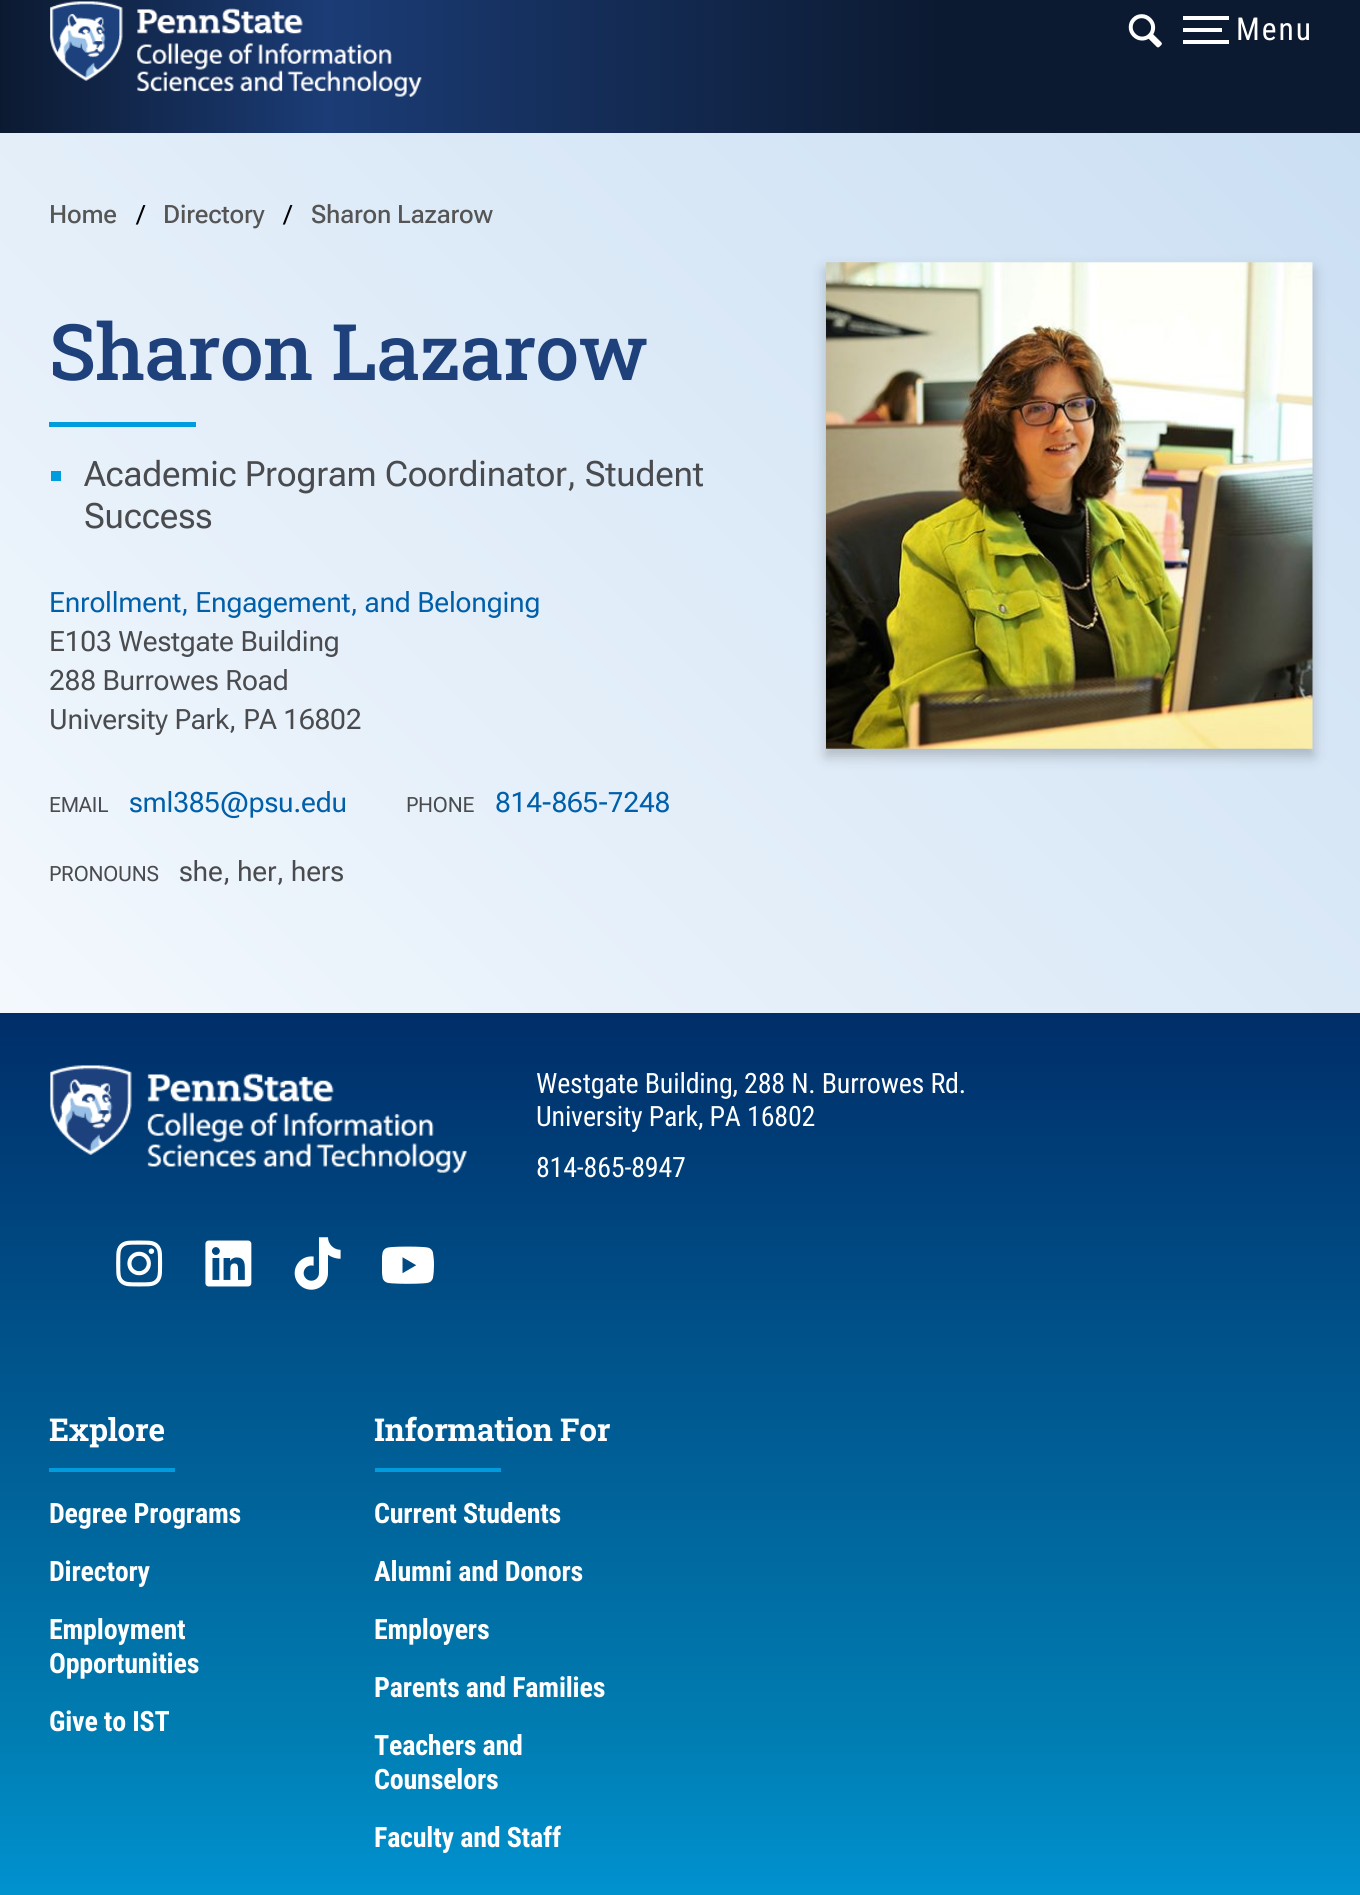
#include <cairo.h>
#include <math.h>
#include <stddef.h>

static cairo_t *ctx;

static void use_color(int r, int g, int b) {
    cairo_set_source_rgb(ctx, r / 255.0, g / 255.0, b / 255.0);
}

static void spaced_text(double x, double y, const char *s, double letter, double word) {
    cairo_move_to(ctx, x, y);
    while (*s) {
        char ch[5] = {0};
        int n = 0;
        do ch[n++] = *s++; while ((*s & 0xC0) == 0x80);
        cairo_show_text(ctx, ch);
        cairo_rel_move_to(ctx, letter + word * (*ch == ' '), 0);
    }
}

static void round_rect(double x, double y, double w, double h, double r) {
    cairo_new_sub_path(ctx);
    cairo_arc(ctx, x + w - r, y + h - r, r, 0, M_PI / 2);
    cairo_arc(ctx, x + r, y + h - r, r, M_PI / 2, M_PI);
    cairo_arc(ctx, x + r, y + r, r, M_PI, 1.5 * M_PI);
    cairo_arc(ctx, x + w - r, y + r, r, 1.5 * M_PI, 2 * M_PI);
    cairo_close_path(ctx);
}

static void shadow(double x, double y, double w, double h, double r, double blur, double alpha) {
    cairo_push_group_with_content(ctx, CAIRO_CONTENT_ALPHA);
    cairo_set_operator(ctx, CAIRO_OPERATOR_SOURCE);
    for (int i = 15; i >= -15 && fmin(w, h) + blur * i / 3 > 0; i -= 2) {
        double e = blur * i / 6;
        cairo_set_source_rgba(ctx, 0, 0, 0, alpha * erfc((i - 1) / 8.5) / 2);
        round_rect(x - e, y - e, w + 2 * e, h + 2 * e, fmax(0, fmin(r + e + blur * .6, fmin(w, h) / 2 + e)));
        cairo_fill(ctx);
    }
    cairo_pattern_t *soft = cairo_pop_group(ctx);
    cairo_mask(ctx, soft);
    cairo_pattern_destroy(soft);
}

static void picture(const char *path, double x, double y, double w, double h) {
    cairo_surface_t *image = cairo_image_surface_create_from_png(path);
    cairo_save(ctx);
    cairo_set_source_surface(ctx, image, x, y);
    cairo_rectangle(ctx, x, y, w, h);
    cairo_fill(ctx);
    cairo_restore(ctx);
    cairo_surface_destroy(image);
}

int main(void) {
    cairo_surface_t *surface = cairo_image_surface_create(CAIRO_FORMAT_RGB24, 1360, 1895);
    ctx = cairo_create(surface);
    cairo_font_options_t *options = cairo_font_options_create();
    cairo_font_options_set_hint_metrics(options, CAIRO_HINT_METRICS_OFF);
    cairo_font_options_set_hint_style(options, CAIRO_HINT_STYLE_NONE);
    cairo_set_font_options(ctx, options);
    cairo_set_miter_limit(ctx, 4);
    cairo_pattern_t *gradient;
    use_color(255, 255, 255);
    cairo_paint(ctx);
    gradient = cairo_pattern_create_linear(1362, 50, 0, 50);
    cairo_pattern_add_color_stop_rgba(gradient, 0, 0.047, 0.102, 0.192, 1);
    cairo_pattern_add_color_stop_rgba(gradient, 0.31, 0.047, 0.102, 0.192, 1);
    cairo_pattern_add_color_stop_rgba(gradient, 0.76, 0.106, 0.235, 0.463, 1);
    cairo_pattern_add_color_stop_rgba(gradient, 1, 0.047, 0.102, 0.192, 1);
    cairo_set_source(ctx, gradient);
    cairo_pattern_destroy(gradient);
    cairo_rectangle(ctx, 0, 0, 1360, 133);
    cairo_fill(ctx);
    picture("img1.png", 50, 1, 372, 96);
    picture("img2.png", 1128, 14, 34, 34);
    use_color(255, 255, 255);
    cairo_rectangle(ctx, 1183, 28, 39, 4);
    cairo_fill(ctx);
    cairo_rectangle(ctx, 1183, 16, 46, 4);
    cairo_fill(ctx);
    cairo_rectangle(ctx, 1183, 40, 46, 4);
    cairo_fill(ctx);
    cairo_select_font_face(ctx, "Roboto Condensed", CAIRO_FONT_SLANT_NORMAL, CAIRO_FONT_WEIGHT_NORMAL);
    cairo_set_font_size(ctx, 31.5);
    spaced_text(1236, 40, "Menu", 2, 0);
    gradient = cairo_pattern_create_linear(120, 1134, 1241, 13);
    cairo_pattern_add_color_stop_rgba(gradient, 0, 0.953, 0.973, 0.992, 1);
    cairo_pattern_add_color_stop_rgba(gradient, 1, 0.796, 0.875, 0.953, 1);
    cairo_set_source(ctx, gradient);
    cairo_pattern_destroy(gradient);
    cairo_rectangle(ctx, 0, 133, 1360, 880);
    cairo_fill(ctx);
    cairo_select_font_face(ctx, "Roboto Flex Medium", CAIRO_FONT_SLANT_NORMAL, CAIRO_FONT_WEIGHT_NORMAL);
    cairo_set_font_size(ctx, 25.25);
    use_color(85, 85, 85);
    spaced_text(49, 223, "Home", -0.2, 0);
    cairo_select_font_face(ctx, "Roboto Flex", CAIRO_FONT_SLANT_NORMAL, CAIRO_FONT_WEIGHT_NORMAL);
    use_color(0, 0, 0);
    spaced_text(137, 223, "/", -0.2, 0);
    cairo_select_font_face(ctx, "Roboto Flex Medium", CAIRO_FONT_SLANT_NORMAL, CAIRO_FONT_WEIGHT_NORMAL);
    use_color(85, 85, 85);
    spaced_text(163, 223, "Directory", -0.2, 0);
    cairo_select_font_face(ctx, "Roboto Flex", CAIRO_FONT_SLANT_NORMAL, CAIRO_FONT_WEIGHT_NORMAL);
    use_color(0, 0, 0);
    spaced_text(284, 223, "/", -0.2, 0);
    cairo_select_font_face(ctx, "Roboto Flex Medium", CAIRO_FONT_SLANT_NORMAL, CAIRO_FONT_WEIGHT_NORMAL);
    use_color(85, 85, 85);
    spaced_text(311, 223, "Sharon Lazarow", -0.2, 0);
    cairo_select_font_face(ctx, "Roboto Slab Medium", CAIRO_FONT_SLANT_NORMAL, CAIRO_FONT_WEIGHT_NORMAL);
    cairo_set_font_size(ctx, 78);
    use_color(30, 65, 123);
    spaced_text(49, 380, "Sharon Lazarow", -0.6, 0);
    use_color(0, 156, 222);
    cairo_rectangle(ctx, 49, 422, 147, 5);
    cairo_fill(ctx);
    cairo_rectangle(ctx, 51, 471, 10, 10);
    cairo_fill(ctx);
    cairo_select_font_face(ctx, "Roboto Flex", CAIRO_FONT_SLANT_NORMAL, CAIRO_FONT_WEIGHT_NORMAL);
    cairo_set_font_size(ctx, 34.9);
    use_color(73, 75, 78);
    spaced_text(84, 486, "Academic Program Coordinator, Student", -0.2, 0);
    spaced_text(84, 528, "Success", -0.2, 0);
    cairo_set_font_size(ctx, 28);
    use_color(0, 95, 169);
    spaced_text(49, 612, "Enrollment, Engagement, and Belonging", -0.2, 0);
    use_color(73, 75, 78);
    spaced_text(49, 651, "E103 Westgate Building", -0.2, 0);
    spaced_text(49, 690, "288 Burrowes Road", -0.2, 0);
    spaced_text(49, 729, "University Park, PA 16802", -0.2, 0);
    cairo_set_font_size(ctx, 21);
    spaced_text(49, 812, "EMAIL", -0.2, 0);
    cairo_set_font_size(ctx, 28);
    use_color(0, 95, 169);
    spaced_text(129, 812, "sml385@psu.edu", -0.2, 0);
    cairo_set_font_size(ctx, 21);
    use_color(73, 75, 78);
    spaced_text(406, 812, "PHONE", -0.2, 0);
    cairo_set_font_size(ctx, 28);
    use_color(0, 95, 169);
    spaced_text(495, 812, "814-865-7248", -0.2, 0);
    cairo_set_font_size(ctx, 21);
    use_color(73, 75, 78);
    spaced_text(49, 881, "PRONOUNS", -0.2, 0);
    cairo_set_font_size(ctx, 28);
    spaced_text(179, 881, "she, her, hers", -0.2, 0);
    use_color(21, 22, 26);
    shadow(826, 270, 487, 486, 0, 7, 0.25);
    picture("img3.png", 826, 262, 487, 487);
    gradient = cairo_pattern_create_linear(681, 1013, 681, 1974);
    cairo_pattern_add_color_stop_rgba(gradient, 0, 0, 0.18, 0.412, 1);
    cairo_pattern_add_color_stop_rgba(gradient, 0.75, 0, 0.49, 0.698, 1);
    cairo_pattern_add_color_stop_rgba(gradient, 1, 0, 0.612, 0.871, 1);
    cairo_set_source(ctx, gradient);
    cairo_pattern_destroy(gradient);
    cairo_rectangle(ctx, 0, 1013, 1360, 882);
    cairo_fill(ctx);
    picture("img4.png", 50, 1065, 417, 108);
    cairo_select_font_face(ctx, "Roboto Condensed", CAIRO_FONT_SLANT_NORMAL, CAIRO_FONT_WEIGHT_NORMAL);
    use_color(255, 255, 255);
    spaced_text(536, 1093, "Westgate Building, 288 N. Burrowes Rd.", -0.2, 0);
    spaced_text(536, 1126, "University Park, PA 16802", -0.2, 0);
    spaced_text(536, 1177, "814-865-8947", -0.2, 0);
    picture("img5.png", 116, 1240, 47, 47);
    picture("img6.png", 205, 1240, 47, 47);
    picture("img7.png", 294, 1237, 47, 53);
    picture("img8.png", 382, 1246, 52, 38);
    cairo_select_font_face(ctx, "Roboto Slab", CAIRO_FONT_SLANT_NORMAL, CAIRO_FONT_WEIGHT_BOLD);
    cairo_set_font_size(ctx, 31.5);
    spaced_text(49, 1441, "Explore", -0.25, 0);
    use_color(0, 156, 222);
    cairo_rectangle(ctx, 49, 1468, 126, 4);
    cairo_fill(ctx);
    cairo_select_font_face(ctx, "Roboto Condensed", CAIRO_FONT_SLANT_NORMAL, CAIRO_FONT_WEIGHT_BOLD);
    cairo_set_font_size(ctx, 28);
    use_color(255, 255, 255);
    spaced_text(49, 1523, "Degree Programs", -0.2, 0);
    spaced_text(49, 1581, "Directory", -0.2, 0);
    spaced_text(49, 1639, "Employment", -0.2, 0);
    spaced_text(49, 1673, "Opportunities", -0.2, 0);
    spaced_text(49, 1731, "Give to IST", -0.2, 0);
    cairo_select_font_face(ctx, "Roboto Slab", CAIRO_FONT_SLANT_NORMAL, CAIRO_FONT_WEIGHT_BOLD);
    cairo_set_font_size(ctx, 31.5);
    spaced_text(374, 1441, "Information For", -0.25, 0);
    use_color(0, 156, 222);
    cairo_rectangle(ctx, 375, 1468, 126, 4);
    cairo_fill(ctx);
    cairo_select_font_face(ctx, "Roboto Condensed", CAIRO_FONT_SLANT_NORMAL, CAIRO_FONT_WEIGHT_BOLD);
    cairo_set_font_size(ctx, 28);
    use_color(255, 255, 255);
    spaced_text(374, 1523, "Current Students", -0.2, 0);
    spaced_text(374, 1581, "Alumni and Donors", -0.2, 0);
    spaced_text(374, 1639, "Employers", -0.2, 0);
    spaced_text(374, 1697, "Parents and Families", -0.2, 0);
    spaced_text(374, 1755, "Teachers and", -0.2, 0);
    spaced_text(374, 1789, "Counselors", -0.2, 0);
    spaced_text(374, 1847, "Faculty and Staff", -0.2, 0);
    cairo_surface_write_to_png(surface, "result.png");
    cairo_font_options_destroy(options);
    cairo_destroy(ctx);
    cairo_surface_destroy(surface);
    return 0;
}
